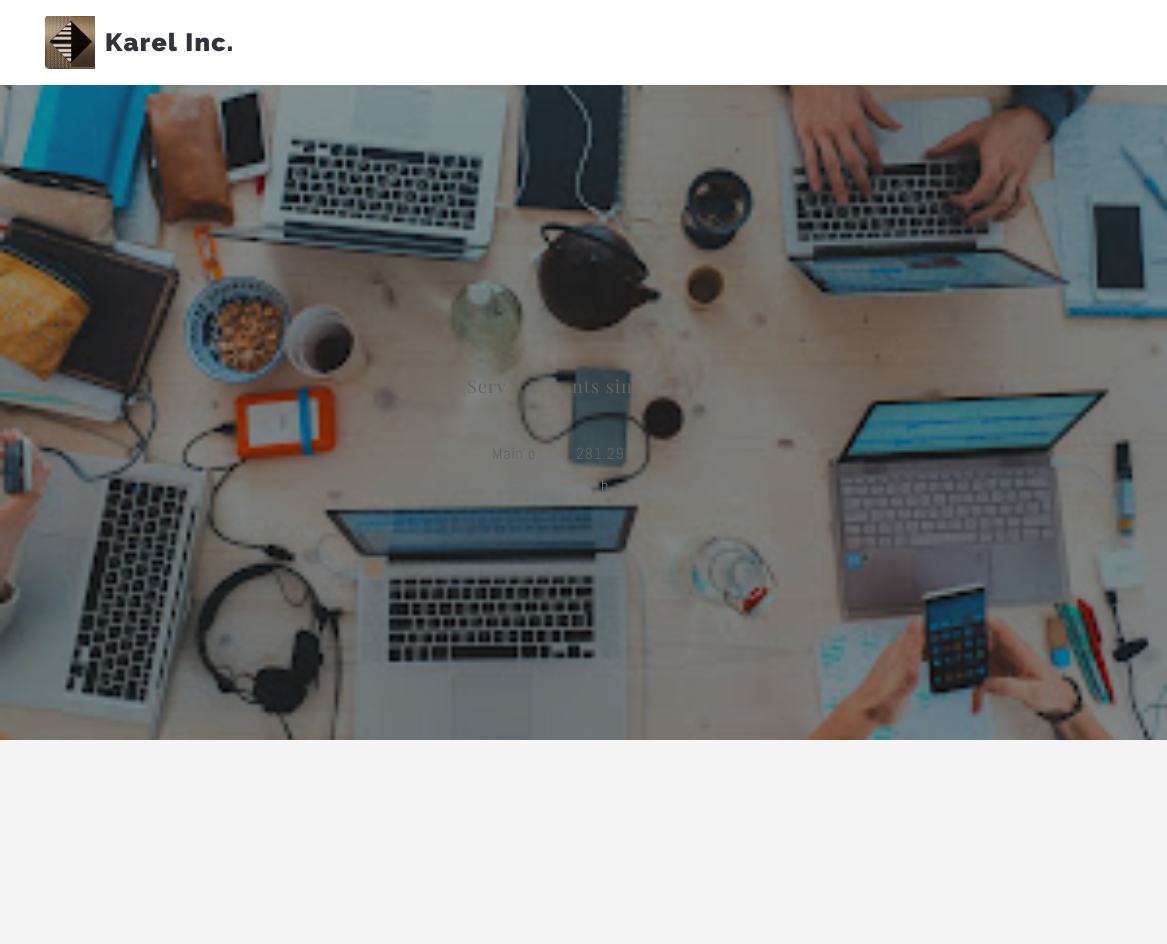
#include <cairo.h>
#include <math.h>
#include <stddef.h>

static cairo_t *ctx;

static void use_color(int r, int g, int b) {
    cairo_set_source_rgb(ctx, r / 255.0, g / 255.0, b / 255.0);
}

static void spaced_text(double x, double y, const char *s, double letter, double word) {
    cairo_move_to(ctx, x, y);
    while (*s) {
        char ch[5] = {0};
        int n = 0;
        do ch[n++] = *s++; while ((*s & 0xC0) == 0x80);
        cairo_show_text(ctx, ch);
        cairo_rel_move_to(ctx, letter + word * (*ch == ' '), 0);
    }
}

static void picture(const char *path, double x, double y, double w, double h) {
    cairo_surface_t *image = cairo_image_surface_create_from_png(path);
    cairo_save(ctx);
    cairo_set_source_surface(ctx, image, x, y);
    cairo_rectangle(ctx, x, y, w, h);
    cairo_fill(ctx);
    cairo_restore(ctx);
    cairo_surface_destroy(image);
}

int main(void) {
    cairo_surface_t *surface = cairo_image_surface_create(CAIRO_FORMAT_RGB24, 1167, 944);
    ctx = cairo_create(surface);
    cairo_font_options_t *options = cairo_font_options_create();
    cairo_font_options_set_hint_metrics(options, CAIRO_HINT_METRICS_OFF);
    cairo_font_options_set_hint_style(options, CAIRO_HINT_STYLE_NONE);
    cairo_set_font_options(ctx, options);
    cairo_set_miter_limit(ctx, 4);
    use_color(255, 255, 255);
    cairo_paint(ctx);
    picture("img1.png", 45, 16, 50, 53);
    cairo_select_font_face(ctx, "Raleway Black", CAIRO_FONT_SLANT_NORMAL, CAIRO_FONT_WEIGHT_NORMAL);
    cairo_set_font_size(ctx, 25);
    use_color(50, 50, 60);
    spaced_text(105, 51, "Karel Inc.", 1.25, 0);
    picture("img2.png", 0, 85, 1167, 655);
    cairo_select_font_face(ctx, "Playfair Display", CAIRO_FONT_SLANT_NORMAL, CAIRO_FONT_WEIGHT_NORMAL);
    cairo_set_font_size(ctx, 18);
    use_color(98, 99, 97);
    spaced_text(467, 393, "Serv", 1, 0);
    spaced_text(572, 393, "nts sin", 1, 0);
    cairo_select_font_face(ctx, "Abel", CAIRO_FONT_SLANT_NORMAL, CAIRO_FONT_WEIGHT_NORMAL);
    cairo_set_font_size(ctx, 16);
    spaced_text(492, 459, "Main o", 0.75, 0);
    spaced_text(576, 459, "281.29", 0.75, 0);
    use_color(110, 111, 109);
    spaced_text(601, 491, "h", 0.75, 0);
    use_color(244, 244, 244);
    cairo_rectangle(ctx, 0, 740, 1167, 204);
    cairo_fill(ctx);
    cairo_surface_write_to_png(surface, "result.png");
    cairo_font_options_destroy(options);
    cairo_destroy(ctx);
    cairo_surface_destroy(surface);
    return 0;
}
